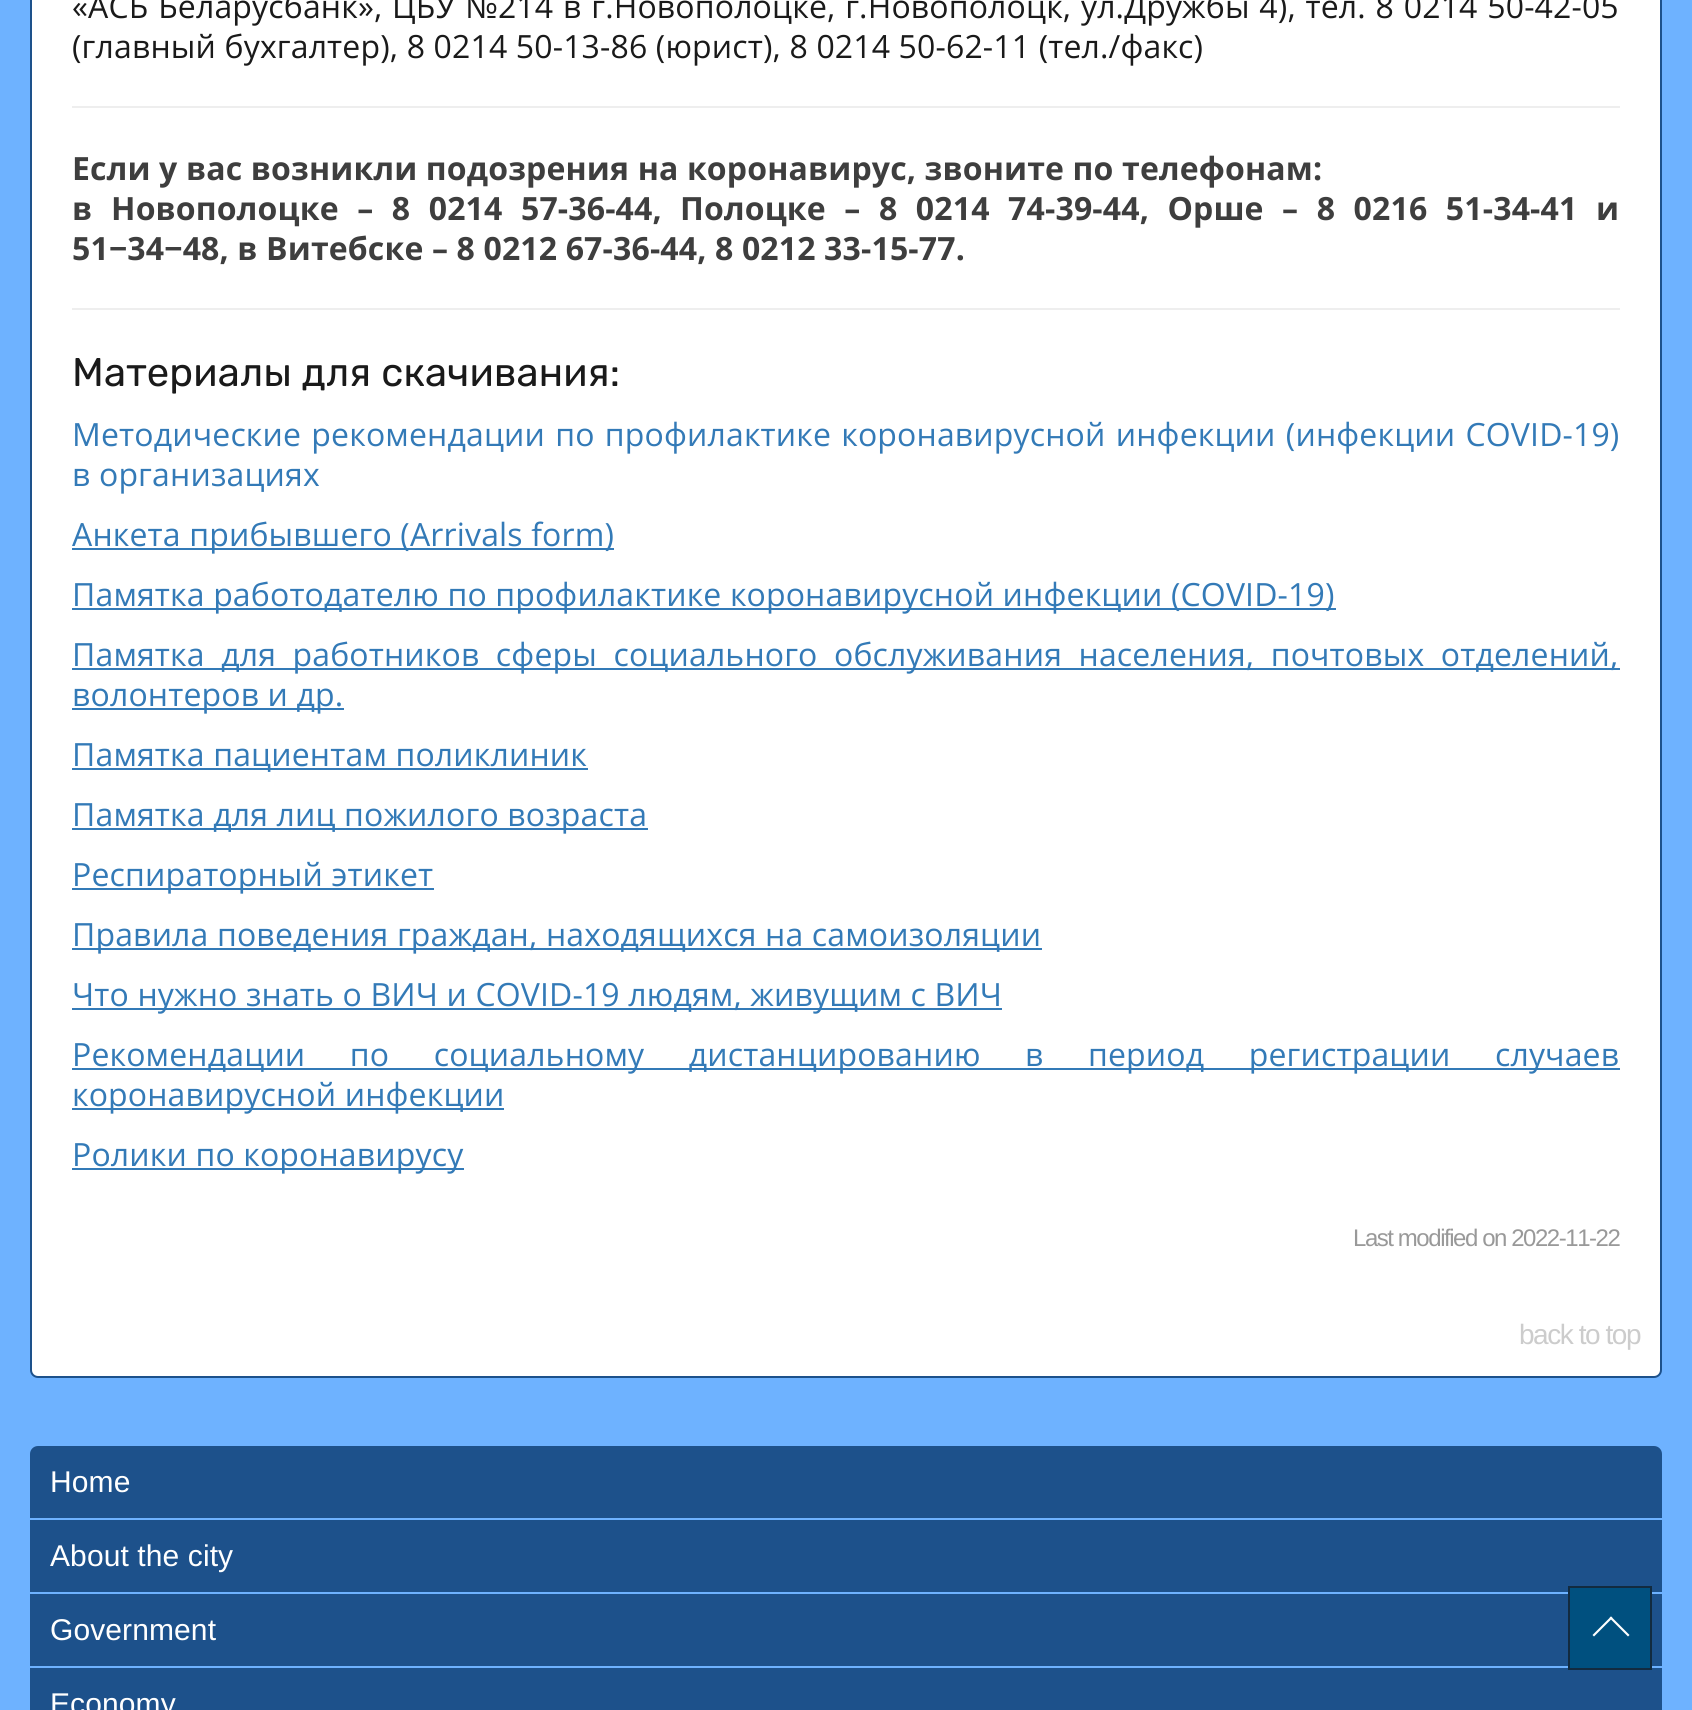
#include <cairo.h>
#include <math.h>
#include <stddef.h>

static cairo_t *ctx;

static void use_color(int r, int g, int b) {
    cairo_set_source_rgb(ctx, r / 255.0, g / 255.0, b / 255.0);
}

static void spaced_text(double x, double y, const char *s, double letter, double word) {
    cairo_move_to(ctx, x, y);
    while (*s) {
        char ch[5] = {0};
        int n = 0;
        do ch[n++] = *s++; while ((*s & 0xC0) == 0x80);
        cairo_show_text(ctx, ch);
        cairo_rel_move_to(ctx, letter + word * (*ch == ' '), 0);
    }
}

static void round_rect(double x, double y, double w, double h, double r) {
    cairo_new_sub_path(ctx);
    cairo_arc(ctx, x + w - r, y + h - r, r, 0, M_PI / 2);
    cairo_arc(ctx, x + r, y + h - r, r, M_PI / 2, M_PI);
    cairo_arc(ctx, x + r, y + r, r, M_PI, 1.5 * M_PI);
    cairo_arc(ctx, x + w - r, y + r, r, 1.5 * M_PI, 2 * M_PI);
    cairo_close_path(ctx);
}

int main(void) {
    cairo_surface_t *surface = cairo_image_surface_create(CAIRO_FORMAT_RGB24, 1692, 1710);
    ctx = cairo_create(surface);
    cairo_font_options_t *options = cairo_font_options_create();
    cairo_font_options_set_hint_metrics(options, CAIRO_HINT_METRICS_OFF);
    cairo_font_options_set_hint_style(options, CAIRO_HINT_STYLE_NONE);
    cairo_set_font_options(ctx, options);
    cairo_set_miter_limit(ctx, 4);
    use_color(110, 178, 255);
    cairo_paint(ctx);
    use_color(255, 255, 255);
    round_rect(31, -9, 1630, 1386, 7);
    cairo_fill_preserve(ctx);
    use_color(29, 81, 139);
    cairo_stroke(ctx);
    cairo_select_font_face(ctx, "Open Sans", CAIRO_FONT_SLANT_NORMAL, CAIRO_FONT_WEIGHT_NORMAL);
    cairo_set_font_size(ctx, 32);
    use_color(26, 26, 26);
    spaced_text(72, 18, "«АСБ Беларусбанк», ЦБУ №214 в г.Новополоцке, г.Новополоцк, ул.Дружбы 4), тел. 8 0214 50-42-05", 0.15, 1.25);
    spaced_text(72, 58, "(главный бухгалтер), 8 0214 50-13-86 (юрист), 8 0214 50-62-11 (тел./факс)", 0.15, 0);
    use_color(238, 238, 238);
    cairo_rectangle(ctx, 72, 106, 1548, 2);
    cairo_fill(ctx);
    cairo_select_font_face(ctx, "Open Sans", CAIRO_FONT_SLANT_NORMAL, CAIRO_FONT_WEIGHT_BOLD);
    use_color(62, 62, 62);
    spaced_text(72, 180, "Если у вас возникли подозрения на коронавирус, звоните по телефонам:", 0.15, 0);
    spaced_text(72, 220, "в", 0.15, 0);
    spaced_text(111, 220, "Новополоцке – 8 0214 57-36-44,", 0.15, 10);
    spaced_text(680, 220, "Полоцке – 8 0214 74-39-44, Орше – 8 0216 51-34-41 и", 0.15, 10);
    spaced_text(72, 260, "51−34−48, в Витебске – 8 0212 67-36-44, 8 0212 33-15-77.", 0.15, 0);
    use_color(238, 238, 238);
    cairo_rectangle(ctx, 72, 308, 1548, 2);
    cairo_fill(ctx);
    cairo_select_font_face(ctx, "Rubik", CAIRO_FONT_SLANT_NORMAL, CAIRO_FONT_WEIGHT_NORMAL);
    cairo_set_font_size(ctx, 40);
    use_color(26, 26, 26);
    spaced_text(72, 386, "Материалы для скачивания:", 0.15, 0);
    cairo_select_font_face(ctx, "Open Sans", CAIRO_FONT_SLANT_NORMAL, CAIRO_FONT_WEIGHT_NORMAL);
    cairo_set_font_size(ctx, 32);
    use_color(51, 122, 183);
    spaced_text(72, 446, "Методические рекомендации по профилактике коронавирусной инфекции (инфекции COVID-19)", 0.15, 1.75);
    spaced_text(72, 486, "в организациях", 0.15, 0);
    cairo_rectangle(ctx, 72, 548, 542, 2);
    cairo_fill(ctx);
    spaced_text(72, 546, "Анкета прибывшего (Arrivals form)", 0.15, 0);
    cairo_rectangle(ctx, 72, 608, 1264, 2);
    cairo_fill(ctx);
    spaced_text(72, 606, "Памятка работодателю по профилактике коронавирусной инфекции (COVID-19)", 0.15, 0);
    cairo_rectangle(ctx, 72, 668, 1548, 2);
    cairo_fill(ctx);
    spaced_text(72, 666, "Памятка для работников сферы социального обслуживания населения, почтовых отделений,", 0.15, 8);
    cairo_rectangle(ctx, 72, 708, 272, 2);
    cairo_fill(ctx);
    spaced_text(72, 706, "волонтеров и др.", 0.15, 0);
    cairo_rectangle(ctx, 72, 768, 516, 2);
    cairo_fill(ctx);
    spaced_text(72, 766, "Памятка пациентам поликлиник", 0.15, 0);
    cairo_rectangle(ctx, 72, 828, 576, 2);
    cairo_fill(ctx);
    spaced_text(72, 826, "Памятка для лиц пожилого возраста", 0.15, 0);
    cairo_rectangle(ctx, 72, 888, 362, 2);
    cairo_fill(ctx);
    spaced_text(72, 886, "Респираторный этикет", 0.15, 0);
    cairo_rectangle(ctx, 72, 948, 970, 2);
    cairo_fill(ctx);
    spaced_text(72, 946, "Правила поведения граждан, находящихся на самоизоляции", 0.15, 0);
    cairo_rectangle(ctx, 72, 1008, 930, 2);
    cairo_fill(ctx);
    spaced_text(72, 1006, "Что нужно знать о ВИЧ и COVID-19 людям, живущим с ВИЧ", 0.15, 0);
    cairo_rectangle(ctx, 72, 1068, 1548, 2);
    cairo_fill(ctx);
    spaced_text(72, 1066, "Рекомендации по социальному дистанцированию в период регистрации случаев", 0.15, 36);
    cairo_rectangle(ctx, 72, 1108, 432, 2);
    cairo_fill(ctx);
    spaced_text(72, 1106, "коронавирусной инфекции", 0.15, 0);
    cairo_rectangle(ctx, 72, 1168, 392, 2);
    cairo_fill(ctx);
    spaced_text(72, 1166, "Ролики по коронавирусу", 0.15, 0);
    cairo_select_font_face(ctx, "Liberation Sans", CAIRO_FONT_SLANT_NORMAL, CAIRO_FONT_WEIGHT_NORMAL);
    cairo_set_font_size(ctx, 24);
    use_color(153, 153, 153);
    spaced_text(1353, 1246, "Last modified on 2022-11-22", -1.45, 0);
    cairo_set_font_size(ctx, 28);
    use_color(204, 204, 204);
    spaced_text(1519, 1344, "back to top", -1.45, 0);
    use_color(29, 81, 139);
    round_rect(30, 1446, 1632, 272, 8);
    cairo_fill(ctx);
    use_color(110, 178, 255);
    cairo_rectangle(ctx, 30, 1518, 1632, 2);
    cairo_fill(ctx);
    cairo_set_font_size(ctx, 30);
    use_color(255, 255, 255);
    spaced_text(50, 1492, "Home", 0.1, 0);
    use_color(110, 178, 255);
    cairo_rectangle(ctx, 30, 1592, 1632, 2);
    cairo_fill(ctx);
    use_color(255, 255, 255);
    spaced_text(50, 1566, "About the city", 0.1, 0);
    use_color(110, 178, 255);
    cairo_rectangle(ctx, 30, 1666, 1632, 2);
    cairo_fill(ctx);
    use_color(255, 255, 255);
    spaced_text(50, 1640, "Government", 0.1, 0);
    spaced_text(50, 1714, "Economy", 0.1, 0);
    use_color(0, 80, 127);
    cairo_rectangle(ctx, 1569, 1587, 82, 82);
    cairo_fill_preserve(ctx);
    use_color(18, 43, 64);
    cairo_stroke(ctx);
    use_color(255, 255, 255);
    cairo_new_path(ctx);
    cairo_move_to(ctx, 1611, 1616.5);
    cairo_line_to(ctx, 1629.5, 1635);
    cairo_line_to(ctx, 1628, 1636.5);
    cairo_line_to(ctx, 1609.5, 1618);
    cairo_close_path(ctx);
    cairo_fill(ctx);
    cairo_new_path(ctx);
    cairo_move_to(ctx, 1611, 1616.5);
    cairo_line_to(ctx, 1612.5, 1618);
    cairo_line_to(ctx, 1594, 1636.5);
    cairo_line_to(ctx, 1592.5, 1635);
    cairo_close_path(ctx);
    cairo_fill(ctx);
    cairo_surface_write_to_png(surface, "result.png");
    cairo_font_options_destroy(options);
    cairo_destroy(ctx);
    cairo_surface_destroy(surface);
    return 0;
}
